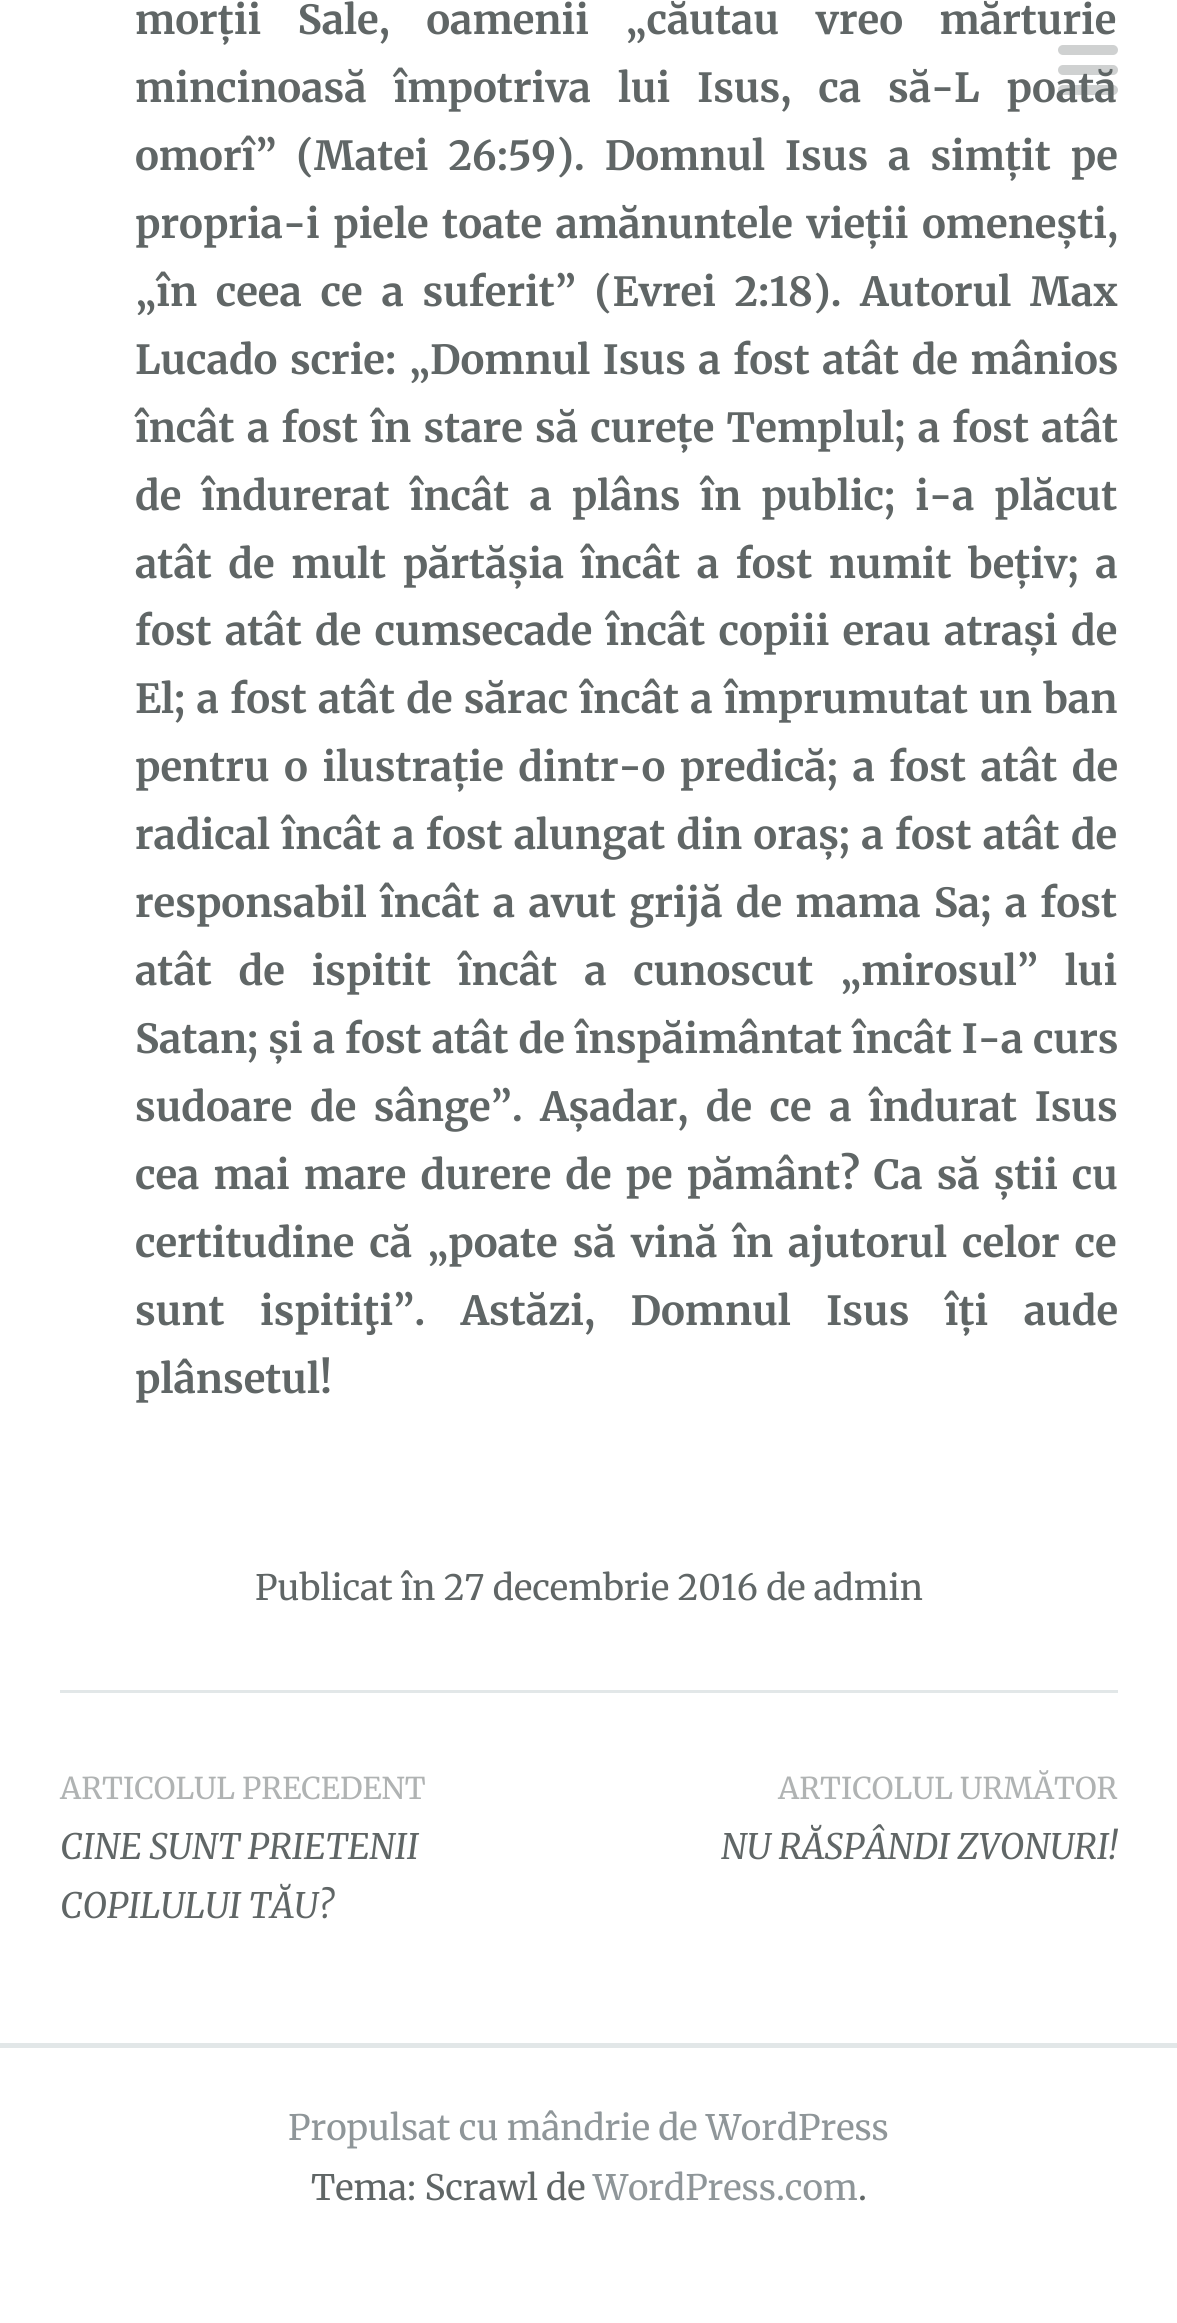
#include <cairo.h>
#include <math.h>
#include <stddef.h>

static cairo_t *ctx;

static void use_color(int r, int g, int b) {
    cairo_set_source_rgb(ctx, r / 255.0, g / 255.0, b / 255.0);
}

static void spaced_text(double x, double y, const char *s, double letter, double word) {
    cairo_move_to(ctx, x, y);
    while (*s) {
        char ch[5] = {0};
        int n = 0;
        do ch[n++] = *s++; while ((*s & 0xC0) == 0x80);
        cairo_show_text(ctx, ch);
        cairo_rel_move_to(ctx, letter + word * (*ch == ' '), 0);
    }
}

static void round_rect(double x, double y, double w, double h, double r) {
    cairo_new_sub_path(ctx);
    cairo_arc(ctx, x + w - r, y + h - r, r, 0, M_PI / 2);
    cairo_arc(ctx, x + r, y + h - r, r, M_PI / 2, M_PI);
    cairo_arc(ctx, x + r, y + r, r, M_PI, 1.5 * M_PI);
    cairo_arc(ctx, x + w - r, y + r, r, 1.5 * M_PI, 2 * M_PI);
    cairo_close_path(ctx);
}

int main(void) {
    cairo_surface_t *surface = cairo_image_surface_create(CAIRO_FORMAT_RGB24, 1177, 2323);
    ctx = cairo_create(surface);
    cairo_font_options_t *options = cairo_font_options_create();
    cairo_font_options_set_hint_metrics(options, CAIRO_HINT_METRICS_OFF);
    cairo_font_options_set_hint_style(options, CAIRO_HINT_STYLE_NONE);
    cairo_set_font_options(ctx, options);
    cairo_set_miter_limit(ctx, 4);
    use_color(255, 255, 255);
    cairo_paint(ctx);
    cairo_select_font_face(ctx, "Merriweather", CAIRO_FONT_SLANT_NORMAL, CAIRO_FONT_WEIGHT_BOLD);
    cairo_set_font_size(ctx, 40);
    use_color(96, 102, 102);
    spaced_text(135, 34, "morții Sale, oamenii „căutau vreo mărturie", 0, 27);
    spaced_text(135, 102, "mincinoasă împotriva lui Isus, ca să-L poată", 0, 17.5);
    spaced_text(135, 170, "omorî” (Matei 26:59). Domnul Isus a simțit pe", 0, 10.5);
    spaced_text(135, 238, "propria-i piele toate amănuntele vieții omenești,", 0, 4);
    spaced_text(135, 306, "„în ceea ce a suferit” (Evrei 2:18). Autorul Max", 0, 9.25);
    spaced_text(135, 374, "Lucado scrie: „Domnul Isus a fost atât de mânios", 0, 3);
    spaced_text(135, 442, "încât a fost în stare să curețe Templul; a fost atât", 0, 2.75);
    spaced_text(135, 510, "de îndurerat încât a plâns în public; i-a plăcut", 0, 10.5);
    spaced_text(135, 578, "atât de mult părtășia încât a fost numit bețiv; a", 0, 7);
    spaced_text(135, 645, "fost atât de cumsecade încât copiii erau atrași de", 0, 3.75);
    spaced_text(135, 713, "El; a fost atât de sărac încât a împrumutat un ban", 0, 1.75);
    spaced_text(135, 781, "pentru o ilustrație dintr-o predică; a fost atât de", 0, 5);
    spaced_text(135, 849, "radical încât a fost alungat din oraș; a fost atât de", 0, 1.75);
    spaced_text(135, 917, "responsabil încât a avut grijă de mama Sa; a fost", 0, 3.75);
    spaced_text(135, 985, "atât de ispitit încât a cunoscut „mirosul” lui", 0, 17.25);
    spaced_text(135, 1053, "Satan; și a fost atât de înspăimântat încât I-a curs", 0, 0.5);
    spaced_text(135, 1121, "sudoare de sânge”. Așadar, de ce a îndurat Isus", 0, 8);
    spaced_text(135, 1189, "cea mai mare durere de pe pământ? Ca să știi cu", 0, 4.5);
    spaced_text(135, 1257, "certitudine că „poate să vină în ajutorul celor ce", 0, 5.5);
    spaced_text(135, 1325, "sunt ispitiţi”. Astăzi, Domnul Isus îți aude", 0, 26);
    cairo_move_to(ctx, 135, 1393);
    cairo_show_text(ctx, "plânsetul!");
    cairo_select_font_face(ctx, "Merriweather", CAIRO_FONT_SLANT_NORMAL, CAIRO_FONT_WEIGHT_NORMAL);
    cairo_set_font_size(ctx, 35);
    cairo_move_to(ctx, 255, 1600);
    cairo_show_text(ctx, "Publicat în 27 decembrie 2016 de admin");
    use_color(226, 231, 232);
    cairo_rectangle(ctx, 60, 1690, 1058, 3);
    cairo_fill(ctx);
    cairo_set_font_size(ctx, 30);
    use_color(176, 179, 179);
    cairo_move_to(ctx, 60, 1799);
    cairo_show_text(ctx, "ARTICOLUL PRECEDENT");
    cairo_select_font_face(ctx, "Merriweather", CAIRO_FONT_SLANT_ITALIC, CAIRO_FONT_WEIGHT_NORMAL);
    cairo_set_font_size(ctx, 35);
    use_color(96, 102, 102);
    cairo_move_to(ctx, 60, 1859);
    cairo_show_text(ctx, "CINE SUNT PRIETENII");
    cairo_move_to(ctx, 60, 1918);
    cairo_show_text(ctx, "COPILULUI TĂU?");
    cairo_select_font_face(ctx, "Merriweather", CAIRO_FONT_SLANT_NORMAL, CAIRO_FONT_WEIGHT_NORMAL);
    cairo_set_font_size(ctx, 30);
    use_color(176, 179, 179);
    cairo_move_to(ctx, 778, 1799);
    cairo_show_text(ctx, "ARTICOLUL URMĂTOR");
    cairo_select_font_face(ctx, "Merriweather", CAIRO_FONT_SLANT_ITALIC, CAIRO_FONT_WEIGHT_NORMAL);
    cairo_set_font_size(ctx, 35);
    use_color(96, 102, 102);
    cairo_move_to(ctx, 721, 1859);
    cairo_show_text(ctx, "NU RĂSPÂNDI ZVONURI!");
    use_color(226, 231, 232);
    cairo_rectangle(ctx, 0, 2043, 1177, 5);
    cairo_fill(ctx);
    cairo_select_font_face(ctx, "Merriweather", CAIRO_FONT_SLANT_NORMAL, CAIRO_FONT_WEIGHT_NORMAL);
    use_color(143, 150, 153);
    cairo_move_to(ctx, 288, 2140);
    cairo_show_text(ctx, "Propulsat cu mândrie de WordPress");
    use_color(96, 102, 102);
    cairo_move_to(ctx, 311, 2200);
    cairo_show_text(ctx, "Tema: Scrawl de");
    use_color(143, 150, 153);
    cairo_move_to(ctx, 593, 2200);
    cairo_show_text(ctx, "WordPress.com");
    use_color(96, 102, 102);
    cairo_move_to(ctx, 858, 2200);
    cairo_show_text(ctx, ".");
    cairo_set_source_rgba(ctx, 0.376, 0.4, 0.4, 0.3);
    round_rect(1058, 65, 60, 10, 5);
    cairo_fill(ctx);
    use_color(207, 209, 209);
    round_rect(1058, 45, 60, 10, 5);
    cairo_fill(ctx);
    cairo_set_source_rgba(ctx, 0.376, 0.4, 0.4, 0.3);
    round_rect(1058, 85, 60, 10, 5);
    cairo_fill(ctx);
    cairo_surface_write_to_png(surface, "result.png");
    cairo_font_options_destroy(options);
    cairo_destroy(ctx);
    cairo_surface_destroy(surface);
    return 0;
}
